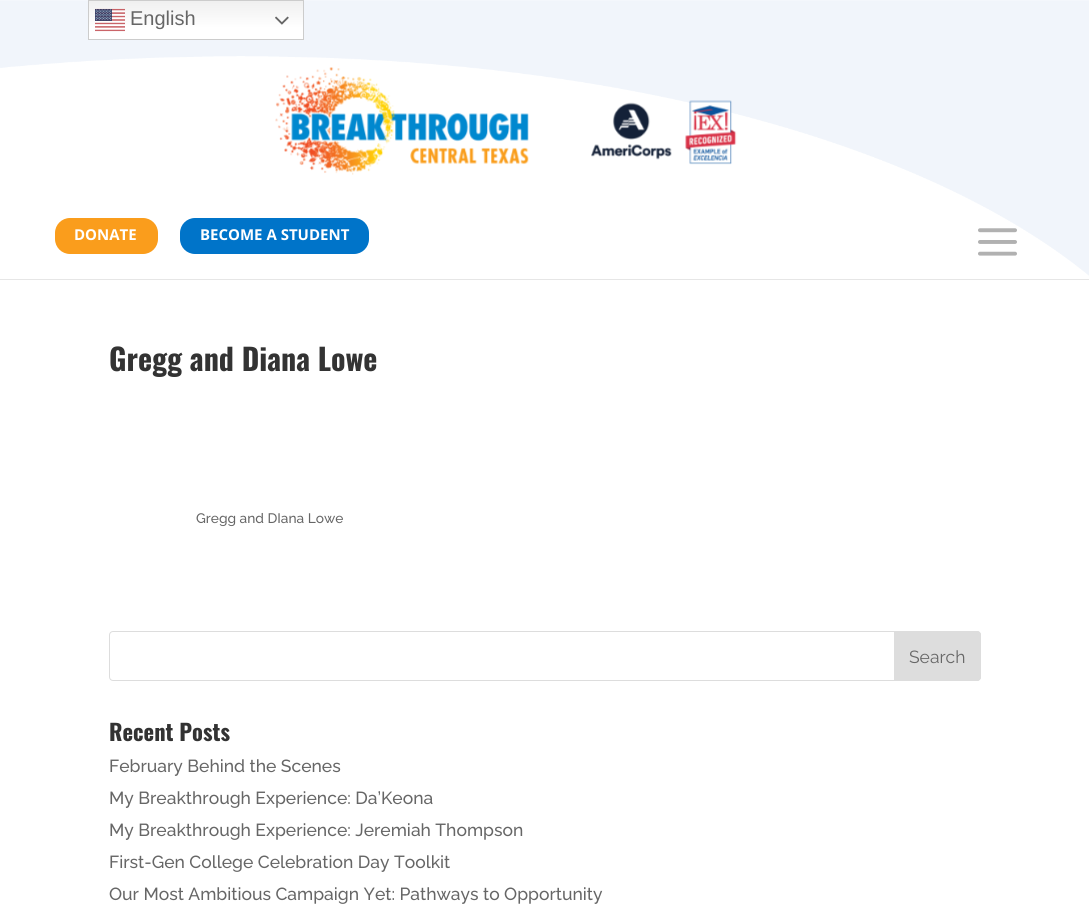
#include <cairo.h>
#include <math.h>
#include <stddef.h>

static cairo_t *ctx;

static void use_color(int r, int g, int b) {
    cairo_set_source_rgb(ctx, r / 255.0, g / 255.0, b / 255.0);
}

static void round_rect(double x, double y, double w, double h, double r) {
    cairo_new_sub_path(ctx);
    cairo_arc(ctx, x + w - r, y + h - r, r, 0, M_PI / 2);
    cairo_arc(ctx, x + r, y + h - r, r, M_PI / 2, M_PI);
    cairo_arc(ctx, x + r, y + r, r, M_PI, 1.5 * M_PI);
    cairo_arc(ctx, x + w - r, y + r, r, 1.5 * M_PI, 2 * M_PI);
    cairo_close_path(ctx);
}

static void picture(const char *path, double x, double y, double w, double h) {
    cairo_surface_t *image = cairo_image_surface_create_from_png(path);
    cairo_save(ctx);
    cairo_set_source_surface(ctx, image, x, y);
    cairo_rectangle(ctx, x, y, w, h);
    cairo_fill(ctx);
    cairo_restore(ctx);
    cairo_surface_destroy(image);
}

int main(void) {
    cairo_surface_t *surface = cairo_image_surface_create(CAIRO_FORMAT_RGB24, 1089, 907);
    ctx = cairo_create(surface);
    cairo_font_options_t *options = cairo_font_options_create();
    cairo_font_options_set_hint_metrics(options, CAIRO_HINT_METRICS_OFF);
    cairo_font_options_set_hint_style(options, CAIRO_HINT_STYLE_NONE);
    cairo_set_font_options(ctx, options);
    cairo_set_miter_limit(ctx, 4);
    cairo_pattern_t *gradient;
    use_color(255, 255, 255);
    cairo_paint(ctx);
    picture("img3.png", 0, 0, 1089, 276);
    gradient = cairo_pattern_create_linear(196, 0, 196, 40);
    cairo_pattern_add_color_stop_rgba(gradient, 0, 0.937, 0.937, 0.937, 1);
    cairo_pattern_add_color_stop_rgba(gradient, 0.7, 1, 1, 1, 1);
    cairo_set_source(ctx, gradient);
    cairo_pattern_destroy(gradient);
    cairo_rectangle(ctx, 89, 1, 214, 38);
    cairo_fill(ctx);
    cairo_rectangle(ctx, 88.5, 0.5, 215, 39);
    use_color(204, 204, 204);
    cairo_set_line_width(ctx, 1);
    cairo_stroke(ctx);
    picture("img1.png", 95, 8, 30, 24);
    cairo_select_font_face(ctx, "Liberation Sans", CAIRO_FONT_SLANT_NORMAL, CAIRO_FONT_WEIGHT_NORMAL);
    cairo_set_font_size(ctx, 20);
    use_color(102, 102, 102);
    cairo_move_to(ctx, 130, 25);
    cairo_show_text(ctx, "English");
    picture("img2.png", 275, 16, 14, 9);
    use_color(230, 230, 230);
    cairo_rectangle(ctx, 0, 279, 1089, 1);
    cairo_fill(ctx);
    picture("img4.png", 275, 67, 462, 108);
    picture("img5.png", 978, 228, 39, 28);
    use_color(250, 157, 28);
    round_rect(55, 218, 103, 36, 15);
    cairo_fill(ctx);
    cairo_select_font_face(ctx, "Open Sans", CAIRO_FONT_SLANT_NORMAL, CAIRO_FONT_WEIGHT_BOLD);
    cairo_set_font_size(ctx, 15);
    use_color(255, 255, 255);
    cairo_move_to(ctx, 74, 240);
    cairo_show_text(ctx, "DONATE");
    use_color(0, 116, 201);
    round_rect(180, 218, 189, 36, 15);
    cairo_fill(ctx);
    use_color(255, 255, 255);
    cairo_move_to(ctx, 200, 240);
    cairo_show_text(ctx, "BECOME A STUDENT");
    cairo_select_font_face(ctx, "Oswald", CAIRO_FONT_SLANT_NORMAL, CAIRO_FONT_WEIGHT_BOLD);
    cairo_set_font_size(ctx, 30);
    use_color(51, 51, 51);
    cairo_move_to(ctx, 109, 371);
    cairo_show_text(ctx, "Gregg and Diana Lowe");
    cairo_select_font_face(ctx, "Raleway Medium", CAIRO_FONT_SLANT_NORMAL, CAIRO_FONT_WEIGHT_NORMAL);
    cairo_set_font_size(ctx, 13.75);
    use_color(102, 102, 102);
    cairo_move_to(ctx, 196, 523);
    cairo_show_text(ctx, "Gregg and DIana Lowe");
    round_rect(109.5, 631.5, 871, 49, 3.5);
    use_color(221, 221, 221);
    cairo_stroke(ctx);
    cairo_new_path(ctx);
    cairo_move_to(ctx, 894.5, 631.5);
    cairo_line_to(ctx, 977, 631.5);
    cairo_curve_to(ctx, 979, 631.5, 980.5, 633, 980.5, 635);
    cairo_line_to(ctx, 980.5, 677);
    cairo_curve_to(ctx, 980.5, 679, 979, 680.5, 977, 680.5);
    cairo_line_to(ctx, 894.5, 680.5);
    cairo_close_path(ctx);
    cairo_fill_preserve(ctx);
    cairo_stroke(ctx);
    cairo_select_font_face(ctx, "Raleway", CAIRO_FONT_SLANT_NORMAL, CAIRO_FONT_WEIGHT_NORMAL);
    cairo_set_font_size(ctx, 17.5);
    use_color(102, 102, 102);
    cairo_move_to(ctx, 909, 663);
    cairo_show_text(ctx, "Search");
    cairo_select_font_face(ctx, "Oswald", CAIRO_FONT_SLANT_NORMAL, CAIRO_FONT_WEIGHT_BOLD);
    cairo_set_font_size(ctx, 22.5);
    use_color(51, 51, 51);
    cairo_move_to(ctx, 109, 741);
    cairo_show_text(ctx, "Recent Posts");
    cairo_select_font_face(ctx, "Raleway Medium", CAIRO_FONT_SLANT_NORMAL, CAIRO_FONT_WEIGHT_NORMAL);
    cairo_set_font_size(ctx, 17.5);
    use_color(102, 102, 102);
    cairo_move_to(ctx, 109, 772);
    cairo_show_text(ctx, "February Behind the Scenes");
    cairo_move_to(ctx, 109, 804);
    cairo_show_text(ctx, "My Breakthrough Experience: Da’Keona");
    cairo_move_to(ctx, 109, 836);
    cairo_show_text(ctx, "My Breakthrough Experience: Jeremiah Thompson");
    cairo_move_to(ctx, 109, 868);
    cairo_show_text(ctx, "First-Gen College Celebration Day Toolkit");
    cairo_move_to(ctx, 109, 900);
    cairo_show_text(ctx, "Our Most Ambitious Campaign Yet: Pathways to Opportunity");
    cairo_surface_write_to_png(surface, "result.png");
    cairo_font_options_destroy(options);
    cairo_destroy(ctx);
    cairo_surface_destroy(surface);
    return 0;
}
